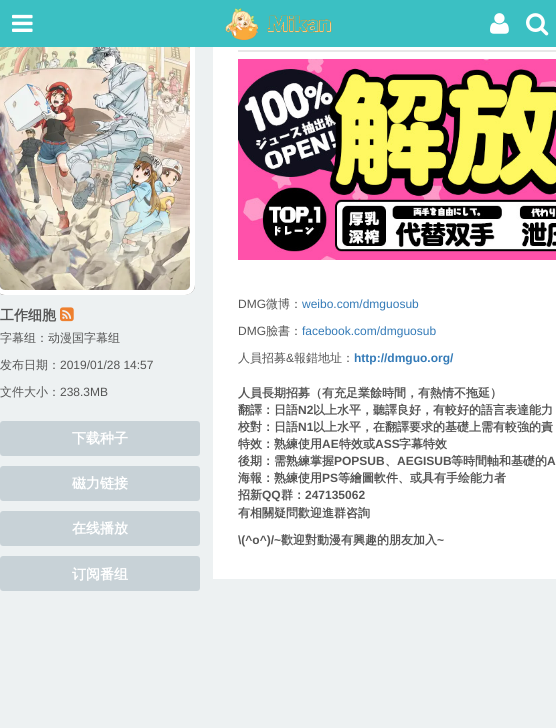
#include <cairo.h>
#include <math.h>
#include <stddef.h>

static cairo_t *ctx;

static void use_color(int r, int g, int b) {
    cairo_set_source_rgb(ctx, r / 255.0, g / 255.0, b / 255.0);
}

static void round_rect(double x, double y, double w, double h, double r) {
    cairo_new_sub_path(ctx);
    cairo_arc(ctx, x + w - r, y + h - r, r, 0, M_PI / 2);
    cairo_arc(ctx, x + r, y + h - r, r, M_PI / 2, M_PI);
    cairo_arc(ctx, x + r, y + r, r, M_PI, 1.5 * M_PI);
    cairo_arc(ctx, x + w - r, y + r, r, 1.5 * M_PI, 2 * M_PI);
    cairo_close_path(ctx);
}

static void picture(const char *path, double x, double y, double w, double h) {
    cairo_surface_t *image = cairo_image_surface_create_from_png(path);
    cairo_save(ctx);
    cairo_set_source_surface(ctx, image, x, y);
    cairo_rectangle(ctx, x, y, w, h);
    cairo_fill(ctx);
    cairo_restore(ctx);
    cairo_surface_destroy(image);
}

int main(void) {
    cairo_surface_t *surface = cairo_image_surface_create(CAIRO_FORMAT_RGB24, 556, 728);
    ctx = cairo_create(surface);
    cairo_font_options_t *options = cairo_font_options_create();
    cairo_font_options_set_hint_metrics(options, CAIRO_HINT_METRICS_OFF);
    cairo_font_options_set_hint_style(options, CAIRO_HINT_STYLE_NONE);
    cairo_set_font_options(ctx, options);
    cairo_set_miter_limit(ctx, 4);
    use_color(237, 241, 242);
    cairo_paint(ctx);
    picture("img6.png", 0, 47, 195, 248);
    round_rect(-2.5, 17.5, 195, 275, 7.5);
    use_color(255, 255, 255);
    cairo_set_line_width(ctx, 5);
    cairo_stroke(ctx);
    use_color(59, 192, 195);
    cairo_rectangle(ctx, 0, 0, 556, 47);
    cairo_fill(ctx);
    picture("img1.png", 12, 14, 21, 18);
    picture("img2.png", 225, 8, 34, 33);
    picture("img3.png", 267, 15, 65, 18);
    picture("img4.png", 490, 13, 19, 21);
    picture("img5.png", 526, 13, 23, 23);
    cairo_select_font_face(ctx, "WenQuanYi Zen Hei", CAIRO_FONT_SLANT_NORMAL, CAIRO_FONT_WEIGHT_BOLD);
    cairo_set_font_size(ctx, 14);
    use_color(85, 85, 85);
    cairo_move_to(ctx, 0, 320);
    cairo_show_text(ctx, "工作细胞");
    picture("img7.png", 60, 307, 14, 15);
    cairo_select_font_face(ctx, "WenQuanYi Zen Hei Medium", CAIRO_FONT_SLANT_NORMAL, CAIRO_FONT_WEIGHT_NORMAL);
    cairo_set_font_size(ctx, 12);
    cairo_move_to(ctx, 0, 342);
    cairo_show_text(ctx, "字幕组：动漫国字幕组");
    cairo_move_to(ctx, 0, 369);
    cairo_show_text(ctx, "发布日期：");
    cairo_select_font_face(ctx, "Liberation Sans", CAIRO_FONT_SLANT_NORMAL, CAIRO_FONT_WEIGHT_NORMAL);
    cairo_move_to(ctx, 60, 369);
    cairo_show_text(ctx, "2019/01/28 14:57");
    cairo_select_font_face(ctx, "WenQuanYi Zen Hei Medium", CAIRO_FONT_SLANT_NORMAL, CAIRO_FONT_WEIGHT_NORMAL);
    cairo_move_to(ctx, 0, 396);
    cairo_show_text(ctx, "文件大小：");
    cairo_select_font_face(ctx, "Liberation Sans", CAIRO_FONT_SLANT_NORMAL, CAIRO_FONT_WEIGHT_NORMAL);
    cairo_move_to(ctx, 60, 396);
    cairo_show_text(ctx, "238.3MB");
    use_color(200, 210, 215);
    round_rect(0, 421, 200, 35, 3);
    cairo_fill(ctx);
    cairo_select_font_face(ctx, "WenQuanYi Zen Hei", CAIRO_FONT_SLANT_NORMAL, CAIRO_FONT_WEIGHT_BOLD);
    cairo_set_font_size(ctx, 14);
    use_color(255, 255, 255);
    cairo_move_to(ctx, 72, 443);
    cairo_show_text(ctx, "下载种子");
    use_color(200, 210, 215);
    round_rect(0, 466, 200, 35, 3);
    cairo_fill(ctx);
    use_color(255, 255, 255);
    cairo_move_to(ctx, 72, 488);
    cairo_show_text(ctx, "磁力链接");
    use_color(200, 210, 215);
    round_rect(0, 511, 200, 35, 3);
    cairo_fill(ctx);
    use_color(255, 255, 255);
    cairo_move_to(ctx, 72, 533);
    cairo_show_text(ctx, "在线播放");
    use_color(200, 210, 215);
    round_rect(0, 556, 200, 35, 3);
    cairo_fill(ctx);
    use_color(255, 255, 255);
    cairo_move_to(ctx, 72, 579);
    cairo_show_text(ctx, "订阅番组");
    cairo_rectangle(ctx, 213, 47, 343, 532);
    cairo_fill(ctx);
    use_color(232, 232, 232);
    cairo_rectangle(ctx, 238, 50, 318, 2);
    cairo_fill(ctx);
    picture("img8.png", 238, 59, 318, 201);
    cairo_select_font_face(ctx, "Liberation Sans", CAIRO_FONT_SLANT_NORMAL, CAIRO_FONT_WEIGHT_NORMAL);
    cairo_set_font_size(ctx, 12);
    use_color(85, 85, 85);
    cairo_move_to(ctx, 238, 308);
    cairo_show_text(ctx, "DMG");
    cairo_select_font_face(ctx, "WenQuanYi Zen Hei Medium", CAIRO_FONT_SLANT_NORMAL, CAIRO_FONT_WEIGHT_NORMAL);
    cairo_move_to(ctx, 266, 308);
    cairo_show_text(ctx, "微博：");
    cairo_select_font_face(ctx, "Liberation Sans", CAIRO_FONT_SLANT_NORMAL, CAIRO_FONT_WEIGHT_NORMAL);
    use_color(51, 122, 183);
    cairo_move_to(ctx, 302, 308);
    cairo_show_text(ctx, "weibo.com/dmguosub");
    use_color(85, 85, 85);
    cairo_move_to(ctx, 238, 335);
    cairo_show_text(ctx, "DMG");
    cairo_select_font_face(ctx, "WenQuanYi Zen Hei Medium", CAIRO_FONT_SLANT_NORMAL, CAIRO_FONT_WEIGHT_NORMAL);
    cairo_move_to(ctx, 266, 335);
    cairo_show_text(ctx, "臉書：");
    cairo_select_font_face(ctx, "Liberation Sans", CAIRO_FONT_SLANT_NORMAL, CAIRO_FONT_WEIGHT_NORMAL);
    use_color(51, 122, 183);
    cairo_move_to(ctx, 302, 335);
    cairo_show_text(ctx, "facebook.com/dmguosub");
    cairo_select_font_face(ctx, "WenQuanYi Zen Hei Medium", CAIRO_FONT_SLANT_NORMAL, CAIRO_FONT_WEIGHT_NORMAL);
    use_color(85, 85, 85);
    cairo_move_to(ctx, 238, 362);
    cairo_show_text(ctx, "人員招募");
    cairo_select_font_face(ctx, "Liberation Sans", CAIRO_FONT_SLANT_NORMAL, CAIRO_FONT_WEIGHT_NORMAL);
    cairo_move_to(ctx, 286, 362);
    cairo_show_text(ctx, "&");
    cairo_select_font_face(ctx, "WenQuanYi Zen Hei Medium", CAIRO_FONT_SLANT_NORMAL, CAIRO_FONT_WEIGHT_NORMAL);
    cairo_move_to(ctx, 294, 362);
    cairo_show_text(ctx, "報錯地址：");
    cairo_select_font_face(ctx, "Liberation Sans", CAIRO_FONT_SLANT_NORMAL, CAIRO_FONT_WEIGHT_BOLD);
    use_color(51, 122, 183);
    cairo_move_to(ctx, 354, 362);
    cairo_show_text(ctx, "http://dmguo.org/");
    cairo_select_font_face(ctx, "WenQuanYi Zen Hei", CAIRO_FONT_SLANT_NORMAL, CAIRO_FONT_WEIGHT_BOLD);
    use_color(85, 85, 85);
    cairo_move_to(ctx, 238, 397);
    cairo_show_text(ctx, "人員長期招募（有充足業餘時間，有熱情不拖延）");
    cairo_move_to(ctx, 238, 414);
    cairo_show_text(ctx, "翻譯：日語");
    cairo_select_font_face(ctx, "Liberation Sans", CAIRO_FONT_SLANT_NORMAL, CAIRO_FONT_WEIGHT_BOLD);
    cairo_move_to(ctx, 298, 414);
    cairo_show_text(ctx, "N2");
    cairo_select_font_face(ctx, "WenQuanYi Zen Hei", CAIRO_FONT_SLANT_NORMAL, CAIRO_FONT_WEIGHT_BOLD);
    cairo_move_to(ctx, 313, 414);
    cairo_show_text(ctx, "以上水平，聽譯良好，有較好的語言表達能力");
    cairo_move_to(ctx, 238, 431);
    cairo_show_text(ctx, "校對：日語");
    cairo_select_font_face(ctx, "Liberation Sans", CAIRO_FONT_SLANT_NORMAL, CAIRO_FONT_WEIGHT_BOLD);
    cairo_move_to(ctx, 298, 431);
    cairo_show_text(ctx, "N1");
    cairo_select_font_face(ctx, "WenQuanYi Zen Hei", CAIRO_FONT_SLANT_NORMAL, CAIRO_FONT_WEIGHT_BOLD);
    cairo_move_to(ctx, 313, 431);
    cairo_show_text(ctx, "以上水平，在翻譯要求的基礎上需有較強的責");
    cairo_move_to(ctx, 238, 448);
    cairo_show_text(ctx, "特效：熟練使用");
    cairo_select_font_face(ctx, "Liberation Sans", CAIRO_FONT_SLANT_NORMAL, CAIRO_FONT_WEIGHT_BOLD);
    cairo_move_to(ctx, 322, 448);
    cairo_show_text(ctx, "AE");
    cairo_select_font_face(ctx, "WenQuanYi Zen Hei", CAIRO_FONT_SLANT_NORMAL, CAIRO_FONT_WEIGHT_BOLD);
    cairo_move_to(ctx, 339, 448);
    cairo_show_text(ctx, "特效或");
    cairo_select_font_face(ctx, "Liberation Sans", CAIRO_FONT_SLANT_NORMAL, CAIRO_FONT_WEIGHT_BOLD);
    cairo_move_to(ctx, 375, 448);
    cairo_show_text(ctx, "ASS");
    cairo_select_font_face(ctx, "WenQuanYi Zen Hei", CAIRO_FONT_SLANT_NORMAL, CAIRO_FONT_WEIGHT_BOLD);
    cairo_move_to(ctx, 399, 448);
    cairo_show_text(ctx, "字幕特效");
    cairo_move_to(ctx, 238, 465);
    cairo_show_text(ctx, "後期：需熟練掌握");
    cairo_select_font_face(ctx, "Liberation Sans", CAIRO_FONT_SLANT_NORMAL, CAIRO_FONT_WEIGHT_BOLD);
    cairo_move_to(ctx, 334, 465);
    cairo_show_text(ctx, "POPSUB");
    cairo_move_to(ctx, 397, 465);
    cairo_show_text(ctx, "AEGISUB");
    cairo_select_font_face(ctx, "WenQuanYi Zen Hei", CAIRO_FONT_SLANT_NORMAL, CAIRO_FONT_WEIGHT_BOLD);
    cairo_move_to(ctx, 451, 465);
    cairo_show_text(ctx, "等時間軸和基礎的");
    cairo_select_font_face(ctx, "Liberation Sans", CAIRO_FONT_SLANT_NORMAL, CAIRO_FONT_WEIGHT_BOLD);
    cairo_move_to(ctx, 547, 465);
    cairo_show_text(ctx, "A");
    cairo_select_font_face(ctx, "WenQuanYi Zen Hei", CAIRO_FONT_SLANT_NORMAL, CAIRO_FONT_WEIGHT_BOLD);
    cairo_move_to(ctx, 385, 465);
    cairo_show_text(ctx, "、");
    cairo_move_to(ctx, 238, 482);
    cairo_show_text(ctx, "海報：熟練使用");
    cairo_select_font_face(ctx, "Liberation Sans", CAIRO_FONT_SLANT_NORMAL, CAIRO_FONT_WEIGHT_BOLD);
    cairo_move_to(ctx, 322, 482);
    cairo_show_text(ctx, "PS");
    cairo_select_font_face(ctx, "WenQuanYi Zen Hei", CAIRO_FONT_SLANT_NORMAL, CAIRO_FONT_WEIGHT_BOLD);
    cairo_move_to(ctx, 338, 482);
    cairo_show_text(ctx, "等繪圖軟件、或具有手绘能力者");
    cairo_move_to(ctx, 238, 499);
    cairo_show_text(ctx, "招新");
    cairo_select_font_face(ctx, "Liberation Sans", CAIRO_FONT_SLANT_NORMAL, CAIRO_FONT_WEIGHT_BOLD);
    cairo_move_to(ctx, 262, 499);
    cairo_show_text(ctx, "QQ");
    cairo_select_font_face(ctx, "WenQuanYi Zen Hei", CAIRO_FONT_SLANT_NORMAL, CAIRO_FONT_WEIGHT_BOLD);
    cairo_move_to(ctx, 281, 499);
    cairo_show_text(ctx, "群：");
    cairo_select_font_face(ctx, "Liberation Sans", CAIRO_FONT_SLANT_NORMAL, CAIRO_FONT_WEIGHT_BOLD);
    cairo_move_to(ctx, 305, 499);
    cairo_show_text(ctx, "247135062");
    cairo_select_font_face(ctx, "WenQuanYi Zen Hei", CAIRO_FONT_SLANT_NORMAL, CAIRO_FONT_WEIGHT_BOLD);
    cairo_move_to(ctx, 238, 517);
    cairo_show_text(ctx, "有相關疑問歡迎進群咨詢");
    cairo_select_font_face(ctx, "Liberation Sans", CAIRO_FONT_SLANT_NORMAL, CAIRO_FONT_WEIGHT_BOLD);
    cairo_move_to(ctx, 238, 544);
    cairo_show_text(ctx, "\\(^o^)/~");
    cairo_select_font_face(ctx, "WenQuanYi Zen Hei", CAIRO_FONT_SLANT_NORMAL, CAIRO_FONT_WEIGHT_BOLD);
    cairo_move_to(ctx, 281, 544);
    cairo_show_text(ctx, "歡迎對動漫有興趣的朋友加入");
    cairo_select_font_face(ctx, "Liberation Sans", CAIRO_FONT_SLANT_NORMAL, CAIRO_FONT_WEIGHT_BOLD);
    cairo_move_to(ctx, 437, 544);
    cairo_show_text(ctx, "~");
    cairo_surface_write_to_png(surface, "result.png");
    cairo_font_options_destroy(options);
    cairo_destroy(ctx);
    cairo_surface_destroy(surface);
    return 0;
}
